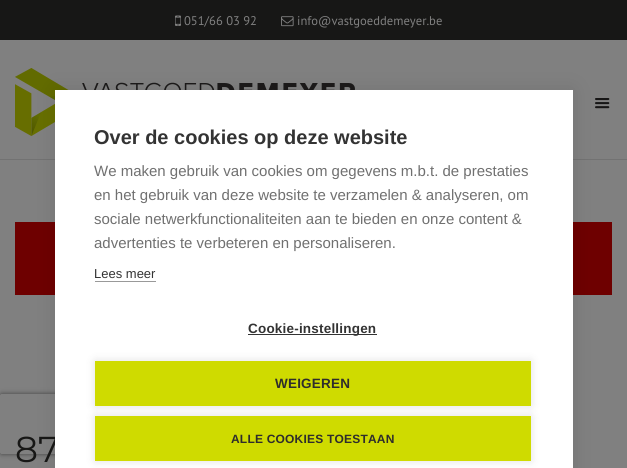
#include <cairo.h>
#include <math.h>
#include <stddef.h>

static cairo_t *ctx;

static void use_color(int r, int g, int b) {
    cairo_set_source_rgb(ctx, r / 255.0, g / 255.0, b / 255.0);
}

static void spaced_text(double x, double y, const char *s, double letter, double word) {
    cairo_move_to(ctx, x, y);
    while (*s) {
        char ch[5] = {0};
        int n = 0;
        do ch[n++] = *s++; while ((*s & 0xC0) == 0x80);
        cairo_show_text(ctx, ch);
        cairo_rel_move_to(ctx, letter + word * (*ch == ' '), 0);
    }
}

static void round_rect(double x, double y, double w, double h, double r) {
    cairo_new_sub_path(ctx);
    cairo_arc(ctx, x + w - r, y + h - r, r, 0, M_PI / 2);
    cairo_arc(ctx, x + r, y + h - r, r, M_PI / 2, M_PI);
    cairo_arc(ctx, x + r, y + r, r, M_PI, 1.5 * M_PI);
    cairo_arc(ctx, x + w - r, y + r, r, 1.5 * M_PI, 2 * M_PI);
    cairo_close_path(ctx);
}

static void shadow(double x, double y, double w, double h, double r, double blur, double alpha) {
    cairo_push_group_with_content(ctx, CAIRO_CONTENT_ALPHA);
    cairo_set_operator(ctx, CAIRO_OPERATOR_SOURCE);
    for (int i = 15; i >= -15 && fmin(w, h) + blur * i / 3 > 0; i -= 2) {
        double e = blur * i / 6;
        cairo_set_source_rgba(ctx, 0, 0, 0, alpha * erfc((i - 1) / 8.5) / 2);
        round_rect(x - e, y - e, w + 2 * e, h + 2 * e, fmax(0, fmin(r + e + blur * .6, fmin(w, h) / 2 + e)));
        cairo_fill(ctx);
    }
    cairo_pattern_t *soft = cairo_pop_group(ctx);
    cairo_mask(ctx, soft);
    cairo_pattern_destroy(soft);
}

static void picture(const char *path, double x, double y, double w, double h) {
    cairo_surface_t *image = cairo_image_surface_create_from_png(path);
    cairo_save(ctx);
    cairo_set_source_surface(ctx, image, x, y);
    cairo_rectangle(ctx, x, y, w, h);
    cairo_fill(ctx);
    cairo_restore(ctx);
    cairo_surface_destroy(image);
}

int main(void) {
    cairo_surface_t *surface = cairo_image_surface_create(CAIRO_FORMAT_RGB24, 627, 468);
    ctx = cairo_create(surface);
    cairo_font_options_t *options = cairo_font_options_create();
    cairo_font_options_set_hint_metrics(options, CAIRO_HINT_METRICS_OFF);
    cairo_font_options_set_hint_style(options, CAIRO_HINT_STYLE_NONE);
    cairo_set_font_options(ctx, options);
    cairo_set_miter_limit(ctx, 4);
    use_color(128, 128, 128);
    cairo_paint(ctx);
    use_color(23, 23, 22);
    cairo_rectangle(ctx, 0, 0, 627, 40);
    cairo_fill(ctx);
    picture("img1.png", 175, 15, 6, 11);
    cairo_select_font_face(ctx, "PT Sans", CAIRO_FONT_SLANT_NORMAL, CAIRO_FONT_WEIGHT_NORMAL);
    cairo_set_font_size(ctx, 12.6);
    use_color(128, 128, 128);
    cairo_move_to(ctx, 184, 25);
    cairo_show_text(ctx, "051/66 03 92");
    picture("img2.png", 281, 16, 13, 11);
    cairo_move_to(ctx, 297, 25);
    cairo_show_text(ctx, "info@vastgoeddemeyer.be");
    use_color(114, 114, 114);
    cairo_rectangle(ctx, 0, 159, 627, 1);
    cairo_fill(ctx);
    picture("img3.png", 15, 68, 340, 68);
    picture("img4.png", 595, 98, 15, 11);
    cairo_save(ctx);
    cairo_set_fill_rule(ctx, CAIRO_FILL_RULE_EVEN_ODD);
    cairo_new_path(ctx);
    cairo_move_to(ctx, 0, 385);
    cairo_line_to(ctx, 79, 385);
    cairo_line_to(ctx, 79, 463);
    cairo_line_to(ctx, 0, 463);
    cairo_close_path(ctx);
    cairo_move_to(ctx, 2, 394);
    cairo_line_to(ctx, 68, 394);
    cairo_curve_to(ctx, 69, 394, 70, 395, 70, 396);
    cairo_line_to(ctx, 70, 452);
    cairo_curve_to(ctx, 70, 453, 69, 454, 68, 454);
    cairo_line_to(ctx, 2, 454);
    cairo_curve_to(ctx, 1, 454, 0, 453, 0, 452);
    cairo_line_to(ctx, 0, 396);
    cairo_curve_to(ctx, 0, 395, 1, 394, 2, 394);
    cairo_close_path(ctx);
    cairo_clip(ctx);
    use_color(64, 64, 64);
    shadow(0, 394, 70, 60, 2, 2.5, 1);
    cairo_restore(ctx);
    use_color(110, 0, 0);
    cairo_rectangle(ctx, 15, 222, 597, 73);
    cairo_fill(ctx);
    use_color(0, 0, 0);
    shadow(55, 90, 518, 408, 0, 10, 0.1);
    cairo_select_font_face(ctx, "Montserrat", CAIRO_FONT_SLANT_NORMAL, CAIRO_FONT_WEIGHT_NORMAL);
    cairo_set_font_size(ctx, 36);
    use_color(23, 23, 22);
    cairo_move_to(ctx, 15, 462);
    cairo_show_text(ctx, "87");
    use_color(255, 255, 255);
    cairo_rectangle(ctx, 55, 90, 518, 378);
    cairo_fill(ctx);
    cairo_select_font_face(ctx, "Liberation Sans", CAIRO_FONT_SLANT_NORMAL, CAIRO_FONT_WEIGHT_BOLD);
    cairo_set_font_size(ctx, 20);
    use_color(51, 51, 51);
    cairo_move_to(ctx, 94, 144);
    cairo_show_text(ctx, "Over de cookies op deze website");
    cairo_select_font_face(ctx, "Liberation Sans", CAIRO_FONT_SLANT_NORMAL, CAIRO_FONT_WEIGHT_NORMAL);
    cairo_set_font_size(ctx, 15);
    use_color(112, 112, 112);
    cairo_move_to(ctx, 94, 176);
    cairo_show_text(ctx, "We maken gebruik van cookies om gegevens m.b.t. de prestaties");
    cairo_move_to(ctx, 94, 200);
    cairo_show_text(ctx, "en het gebruik van deze website te verzamelen & analyseren, om");
    cairo_move_to(ctx, 94, 224);
    cairo_show_text(ctx, "sociale netwerkfunctionaliteiten aan te bieden en onze content &");
    cairo_move_to(ctx, 94, 248);
    cairo_show_text(ctx, "advertenties te verbeteren en personaliseren.");
    cairo_set_font_size(ctx, 13);
    use_color(51, 51, 51);
    cairo_move_to(ctx, 94, 278);
    cairo_show_text(ctx, "Lees meer");
    use_color(153, 153, 153);
    cairo_rectangle(ctx, 95, 281, 61, 1);
    cairo_fill(ctx);
    use_color(51, 51, 51);
    cairo_rectangle(ctx, 248, 334, 129, 1);
    cairo_fill(ctx);
    cairo_select_font_face(ctx, "Liberation Sans", CAIRO_FONT_SLANT_NORMAL, CAIRO_FONT_WEIGHT_BOLD);
    cairo_set_font_size(ctx, 13.5);
    spaced_text(248, 333, "Cookie-instellingen", 0.2, 0);
    use_color(0, 0, 0);
    shadow(95, 361, 436, 45, 0, 5, 0.12);
    use_color(207, 219, 0);
    cairo_rectangle(ctx, 95, 361, 436, 45);
    cairo_fill(ctx);
    use_color(46, 45, 44);
    spaced_text(275, 388, "WEIGEREN", 0.2, 0);
    use_color(0, 0, 0);
    shadow(95, 416, 436, 45, 0, 5, 0.12);
    use_color(207, 219, 0);
    cairo_rectangle(ctx, 95, 416, 436, 45);
    cairo_fill(ctx);
    cairo_set_font_size(ctx, 12);
    use_color(46, 45, 44);
    spaced_text(231, 443, "ALLE COOKIES TOESTAAN", 0.2, 0);
    cairo_surface_write_to_png(surface, "result.png");
    cairo_font_options_destroy(options);
    cairo_destroy(ctx);
    cairo_surface_destroy(surface);
    return 0;
}
